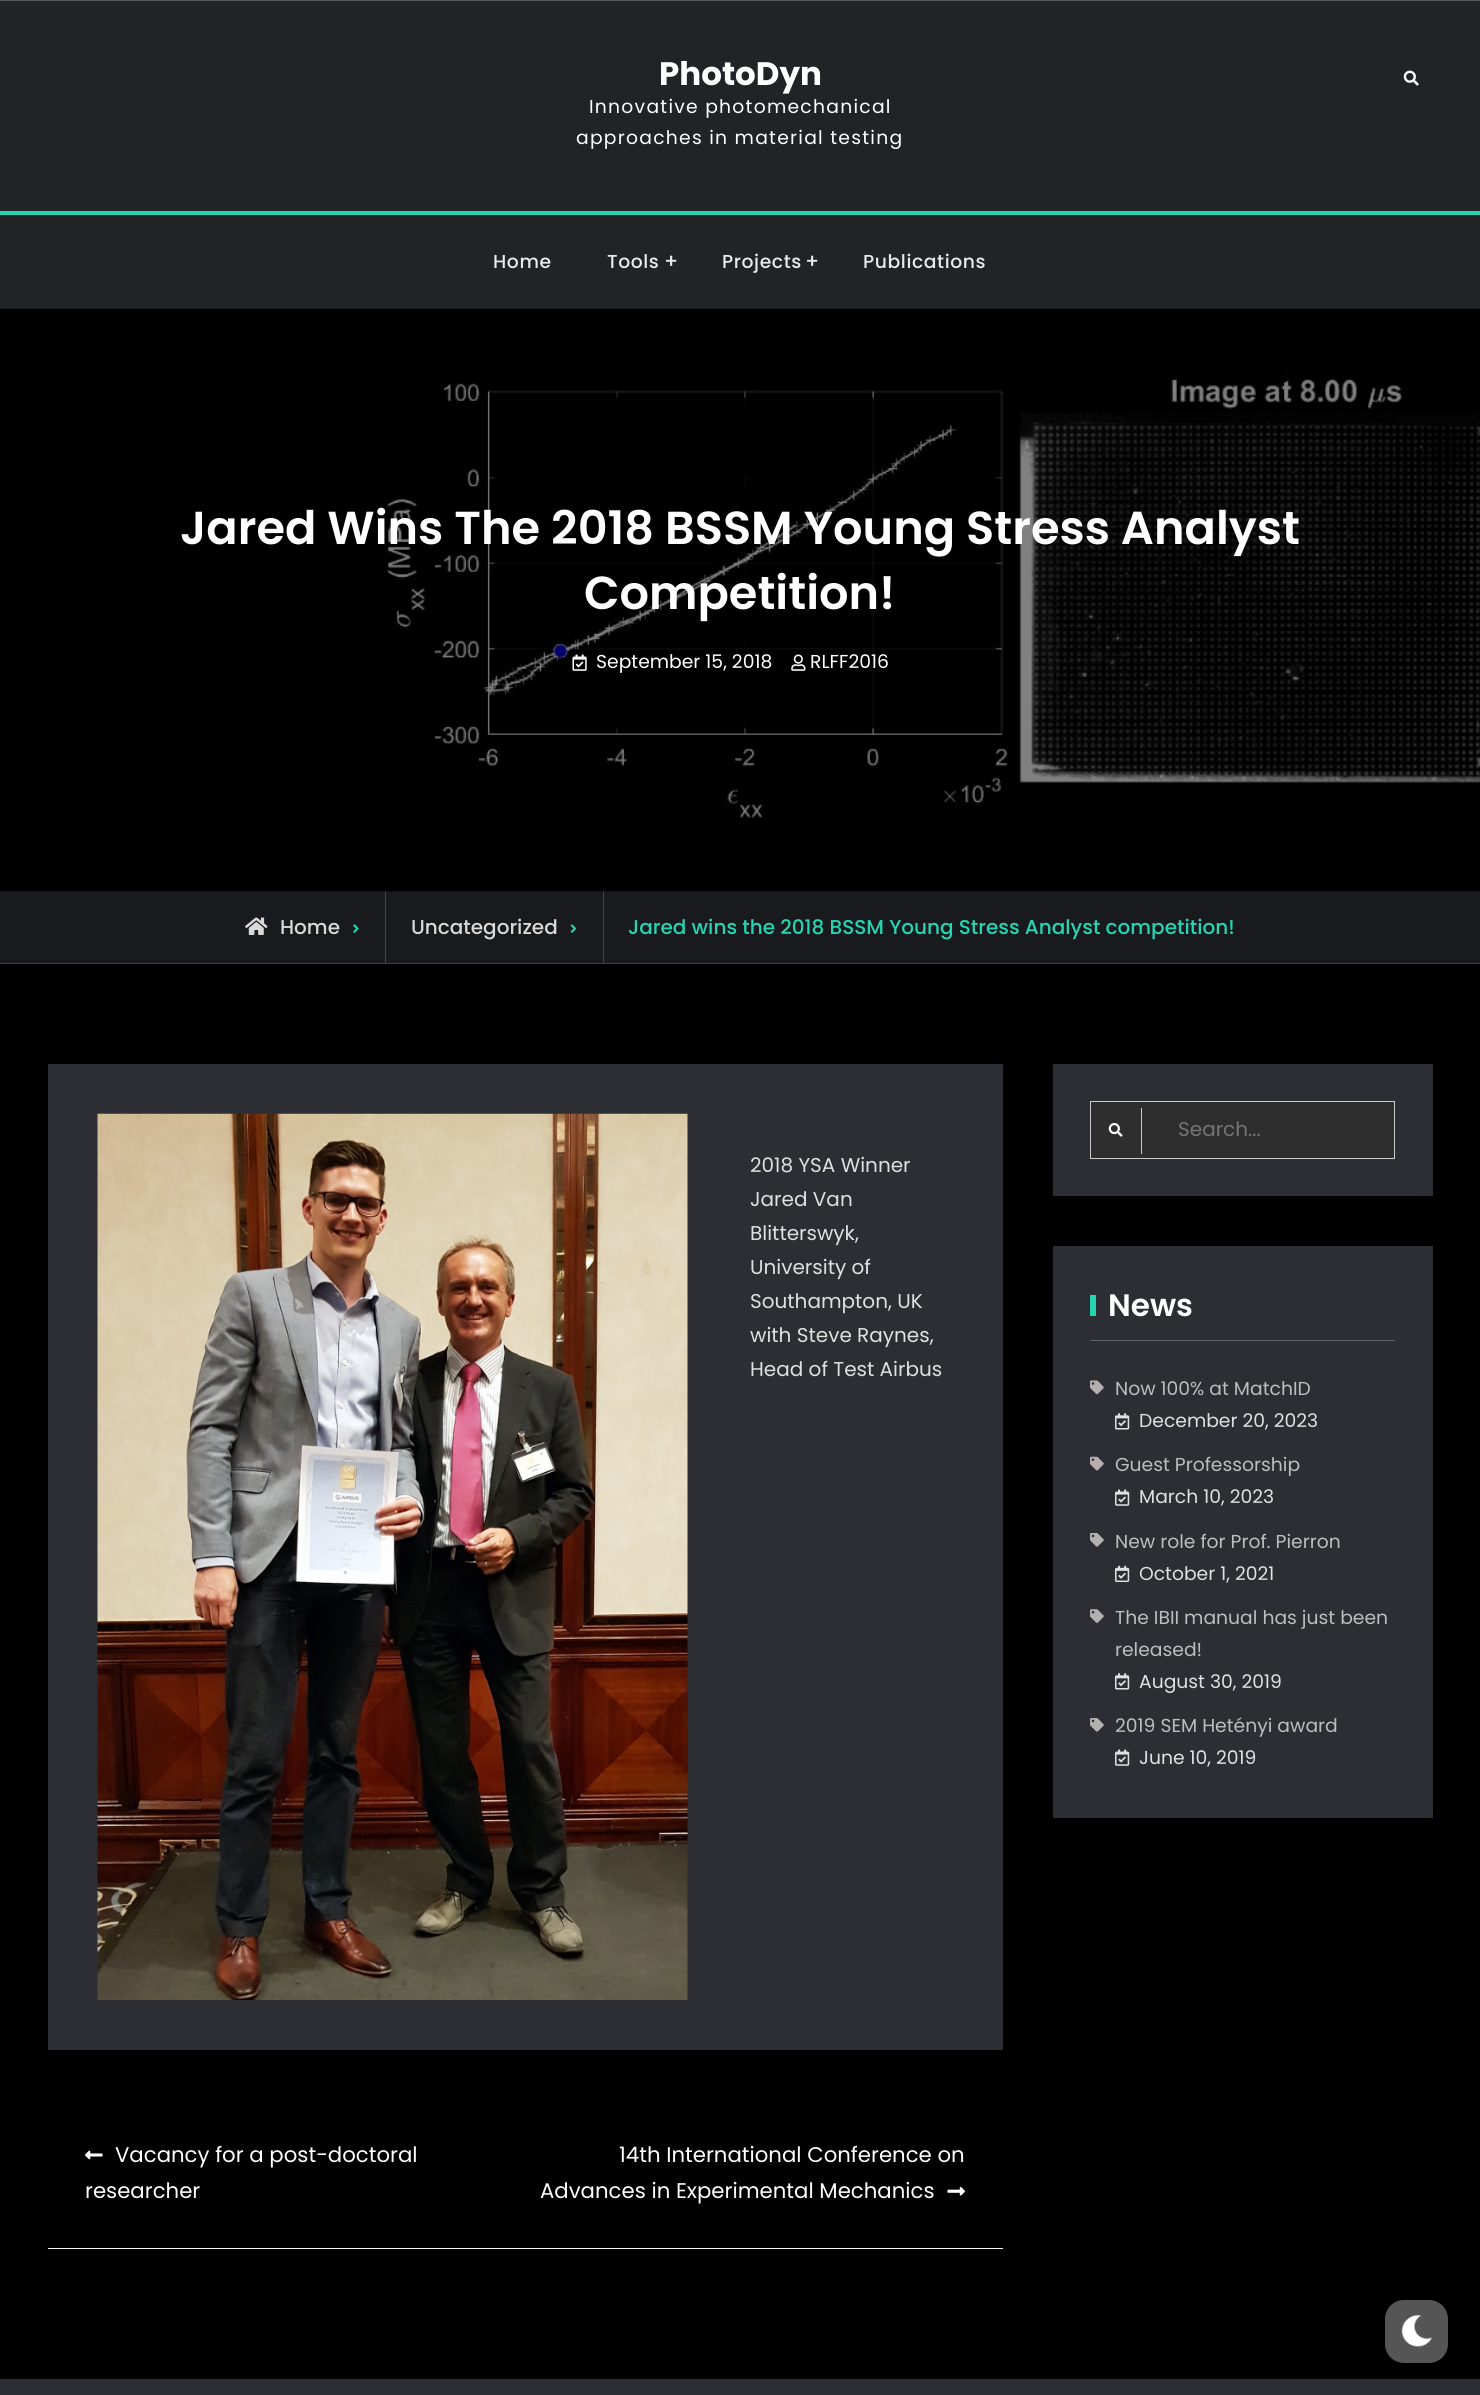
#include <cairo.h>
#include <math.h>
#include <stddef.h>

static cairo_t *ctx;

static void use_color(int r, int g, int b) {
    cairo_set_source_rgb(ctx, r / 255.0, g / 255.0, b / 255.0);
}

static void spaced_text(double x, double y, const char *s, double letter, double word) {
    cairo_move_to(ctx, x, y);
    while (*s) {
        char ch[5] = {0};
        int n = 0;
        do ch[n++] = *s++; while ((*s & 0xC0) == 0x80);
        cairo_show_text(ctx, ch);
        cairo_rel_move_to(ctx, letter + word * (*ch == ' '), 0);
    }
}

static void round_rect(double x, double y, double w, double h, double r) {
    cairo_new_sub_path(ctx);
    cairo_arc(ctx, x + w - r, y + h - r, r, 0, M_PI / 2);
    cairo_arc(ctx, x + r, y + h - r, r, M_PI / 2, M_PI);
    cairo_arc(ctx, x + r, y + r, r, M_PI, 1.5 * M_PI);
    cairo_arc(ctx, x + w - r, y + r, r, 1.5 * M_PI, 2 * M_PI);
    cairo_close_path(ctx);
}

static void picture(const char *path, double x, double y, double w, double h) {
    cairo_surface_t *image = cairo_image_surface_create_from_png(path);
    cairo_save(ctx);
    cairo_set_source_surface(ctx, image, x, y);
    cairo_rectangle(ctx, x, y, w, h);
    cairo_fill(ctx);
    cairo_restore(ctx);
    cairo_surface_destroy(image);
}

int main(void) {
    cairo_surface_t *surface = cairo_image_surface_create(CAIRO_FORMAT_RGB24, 1480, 2395);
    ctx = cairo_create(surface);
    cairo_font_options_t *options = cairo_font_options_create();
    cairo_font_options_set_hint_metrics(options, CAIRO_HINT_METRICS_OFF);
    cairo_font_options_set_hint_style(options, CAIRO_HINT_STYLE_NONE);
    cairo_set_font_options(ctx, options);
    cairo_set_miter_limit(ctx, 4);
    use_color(0, 0, 0);
    cairo_paint(ctx);
    use_color(33, 35, 39);
    cairo_rectangle(ctx, 0, 1, 1480, 308);
    cairo_fill(ctx);
    use_color(88, 89, 92);
    cairo_rectangle(ctx, 0, 0, 1480, 1);
    cairo_fill(ctx);
    cairo_select_font_face(ctx, "Poppins", CAIRO_FONT_SLANT_NORMAL, CAIRO_FONT_WEIGHT_BOLD);
    cairo_set_font_size(ctx, 32.5);
    use_color(255, 255, 255);
    cairo_move_to(ctx, 659, 85);
    cairo_show_text(ctx, "PhotoDyn");
    cairo_select_font_face(ctx, "Poppins", CAIRO_FONT_SLANT_NORMAL, CAIRO_FONT_WEIGHT_NORMAL);
    cairo_set_font_size(ctx, 18.75);
    spaced_text(589, 113, "Innovative photomechanical", 1.25, 0);
    spaced_text(576, 144, "approaches in material testing", 1.25, 0);
    picture("img1.png", 1403, 70, 16, 16);
    use_color(37, 213, 178);
    cairo_rectangle(ctx, 0, 211, 1480, 4);
    cairo_fill(ctx);
    cairo_select_font_face(ctx, "Poppins Medium", CAIRO_FONT_SLANT_NORMAL, CAIRO_FONT_WEIGHT_NORMAL);
    use_color(234, 234, 234);
    spaced_text(493, 268, "Home", 0.6, 0);
    spaced_text(607, 268, "Tools", 0.6, 0);
    cairo_set_font_size(ctx, 20);
    spaced_text(664, 268, "+", 0.6, 0);
    cairo_set_font_size(ctx, 18.75);
    spaced_text(722, 268, "Projects", 0.6, 0);
    cairo_set_font_size(ctx, 20);
    spaced_text(805, 268, "+", 0.6, 0);
    cairo_set_font_size(ctx, 18.75);
    spaced_text(863, 268, "Publications", 0.6, 0);
    use_color(25, 26, 30);
    cairo_rectangle(ctx, 0, 891, 1480, 72);
    cairo_fill(ctx);
    use_color(66, 67, 70);
    cairo_rectangle(ctx, 385, 891, 1, 72);
    cairo_fill(ctx);
    cairo_rectangle(ctx, 603, 891, 1, 72);
    cairo_fill(ctx);
    picture("img2.png", 0, 308, 1480, 584);
    cairo_select_font_face(ctx, "Poppins SemiBold", CAIRO_FONT_SLANT_NORMAL, CAIRO_FONT_WEIGHT_NORMAL);
    cairo_set_font_size(ctx, 46.25);
    use_color(255, 255, 255);
    cairo_move_to(ctx, 180, 544);
    cairo_show_text(ctx, "Jared Wins The 2018 BSSM Young Stress Analyst");
    cairo_move_to(ctx, 584, 609);
    cairo_show_text(ctx, "Competition!");
    picture("img3.png", 572, 654, 15, 17);
    cairo_select_font_face(ctx, "Poppins", CAIRO_FONT_SLANT_NORMAL, CAIRO_FONT_WEIGHT_NORMAL);
    cairo_set_font_size(ctx, 18.75);
    cairo_move_to(ctx, 596, 668);
    cairo_show_text(ctx, "September 15, 2018");
    picture("img4.png", 791, 654, 15, 17);
    cairo_move_to(ctx, 810, 668);
    cairo_show_text(ctx, "RLFF2016");
    use_color(62, 63, 66);
    cairo_rectangle(ctx, 0, 963, 1480, 1);
    cairo_fill(ctx);
    picture("img5.png", 245, 917, 23, 18);
    cairo_select_font_face(ctx, "Poppins Medium", CAIRO_FONT_SLANT_NORMAL, CAIRO_FONT_WEIGHT_NORMAL);
    cairo_set_font_size(ctx, 20);
    use_color(218, 216, 216);
    cairo_move_to(ctx, 280, 934);
    cairo_show_text(ctx, "Home");
    picture("img6.png", 353, 924, 6, 9);
    cairo_move_to(ctx, 411, 934);
    cairo_show_text(ctx, "Uncategorized");
    picture("img7.png", 570, 924, 7, 9);
    use_color(37, 213, 178);
    cairo_move_to(ctx, 628, 934);
    cairo_show_text(ctx, "Jared wins the 2018 BSSM Young Stress Analyst competition!");
    use_color(44, 46, 51);
    cairo_rectangle(ctx, 48, 1064, 955, 986);
    cairo_fill(ctx);
    picture("img8.png", 97, 1113, 591, 887);
    cairo_select_font_face(ctx, "Poppins", CAIRO_FONT_SLANT_NORMAL, CAIRO_FONT_WEIGHT_NORMAL);
    use_color(224, 224, 224);
    cairo_move_to(ctx, 750, 1172);
    cairo_show_text(ctx, "2018 YSA Winner");
    cairo_move_to(ctx, 750, 1206);
    cairo_show_text(ctx, "Jared Van");
    cairo_move_to(ctx, 750, 1240);
    cairo_show_text(ctx, "Blitterswyk,");
    cairo_move_to(ctx, 750, 1274);
    cairo_show_text(ctx, "University of");
    cairo_move_to(ctx, 750, 1308);
    cairo_show_text(ctx, "Southampton, UK");
    cairo_move_to(ctx, 750, 1342);
    cairo_show_text(ctx, "with Steve Raynes,");
    cairo_move_to(ctx, 750, 1376);
    cairo_show_text(ctx, "Head of Test Airbus");
    use_color(247, 247, 247);
    cairo_rectangle(ctx, 48, 2248, 955, 1);
    cairo_fill(ctx);
    picture("img9.png", 85, 2150, 18, 10);
    cairo_set_font_size(ctx, 21.25);
    use_color(255, 255, 255);
    cairo_move_to(ctx, 115, 2162);
    cairo_show_text(ctx, "Vacancy for a post-doctoral");
    cairo_move_to(ctx, 85, 2198);
    cairo_show_text(ctx, "researcher");
    cairo_move_to(ctx, 619, 2162);
    cairo_show_text(ctx, "14th International Conference on");
    cairo_move_to(ctx, 540, 2198);
    cairo_show_text(ctx, "Advances in Experimental Mechanics");
    picture("img10.png", 947, 2187, 18, 9);
    use_color(44, 46, 51);
    cairo_rectangle(ctx, 1053, 1064, 380, 132);
    cairo_fill(ctx);
    use_color(47, 46, 46);
    cairo_rectangle(ctx, 1090.5, 1101.5, 304, 57);
    cairo_fill_preserve(ctx);
    use_color(204, 204, 204);
    cairo_set_line_width(ctx, 1);
    cairo_stroke(ctx);
    cairo_rectangle(ctx, 1141, 1108, 1, 46);
    cairo_fill(ctx);
    picture("img11.png", 1108, 1123, 15, 14);
    cairo_set_font_size(ctx, 20);
    use_color(117, 117, 117);
    cairo_move_to(ctx, 1178, 1136);
    cairo_show_text(ctx, "Search...");
    use_color(44, 46, 51);
    cairo_rectangle(ctx, 1053, 1246, 380, 572);
    cairo_fill(ctx);
    use_color(97, 98, 102);
    cairo_rectangle(ctx, 1090, 1340, 305, 1);
    cairo_fill(ctx);
    use_color(37, 213, 178);
    cairo_rectangle(ctx, 1090, 1295, 6, 21);
    cairo_fill(ctx);
    cairo_select_font_face(ctx, "Poppins SemiBold", CAIRO_FONT_SLANT_NORMAL, CAIRO_FONT_WEIGHT_NORMAL);
    cairo_set_font_size(ctx, 31);
    use_color(255, 255, 255);
    cairo_move_to(ctx, 1108, 1316);
    cairo_show_text(ctx, "News");
    picture("img12.png", 1090, 1380, 14, 15);
    cairo_select_font_face(ctx, "Poppins", CAIRO_FONT_SLANT_NORMAL, CAIRO_FONT_WEIGHT_NORMAL);
    cairo_set_font_size(ctx, 18.75);
    use_color(189, 189, 189);
    cairo_move_to(ctx, 1115, 1395);
    cairo_show_text(ctx, "Now 100% at MatchID");
    picture("img13.png", 1115, 1413, 15, 17);
    use_color(224, 224, 224);
    cairo_move_to(ctx, 1139, 1427);
    cairo_show_text(ctx, "December 20, 2023");
    picture("img14.png", 1090, 1456, 14, 15);
    use_color(189, 189, 189);
    cairo_move_to(ctx, 1115, 1471);
    cairo_show_text(ctx, "Guest Professorship");
    picture("img15.png", 1115, 1489, 15, 17);
    use_color(224, 224, 224);
    cairo_move_to(ctx, 1139, 1503);
    cairo_show_text(ctx, "March 10, 2023");
    picture("img16.png", 1090, 1533, 14, 14);
    use_color(189, 189, 189);
    cairo_move_to(ctx, 1115, 1548);
    cairo_show_text(ctx, "New role for Prof. Pierron");
    picture("img17.png", 1115, 1565, 15, 17);
    use_color(224, 224, 224);
    cairo_move_to(ctx, 1139, 1580);
    cairo_show_text(ctx, "October 1, 2021");
    picture("img18.png", 1090, 1609, 14, 14);
    use_color(189, 189, 189);
    cairo_move_to(ctx, 1115, 1624);
    cairo_show_text(ctx, "The IBII manual has just been");
    cairo_move_to(ctx, 1115, 1656);
    cairo_show_text(ctx, "released!");
    picture("img13.png", 1115, 1673, 15, 17);
    use_color(224, 224, 224);
    cairo_move_to(ctx, 1139, 1688);
    cairo_show_text(ctx, "August 30, 2019");
    picture("img16.png", 1090, 1718, 14, 14);
    use_color(189, 189, 189);
    cairo_move_to(ctx, 1115, 1732);
    cairo_show_text(ctx, "2019 SEM Hetényi award");
    picture("img15.png", 1115, 1749, 15, 17);
    use_color(224, 224, 224);
    cairo_move_to(ctx, 1139, 1764);
    cairo_show_text(ctx, "June 10, 2019");
    use_color(44, 46, 51);
    cairo_rectangle(ctx, 0, 2379, 1480, 16);
    cairo_fill(ctx);
    use_color(85, 85, 85);
    round_rect(1385, 2300, 63, 63, 19);
    cairo_fill(ctx);
    picture("img19.png", 1401, 2315, 31, 32);
    cairo_surface_write_to_png(surface, "result.png");
    cairo_font_options_destroy(options);
    cairo_destroy(ctx);
    cairo_surface_destroy(surface);
    return 0;
}
